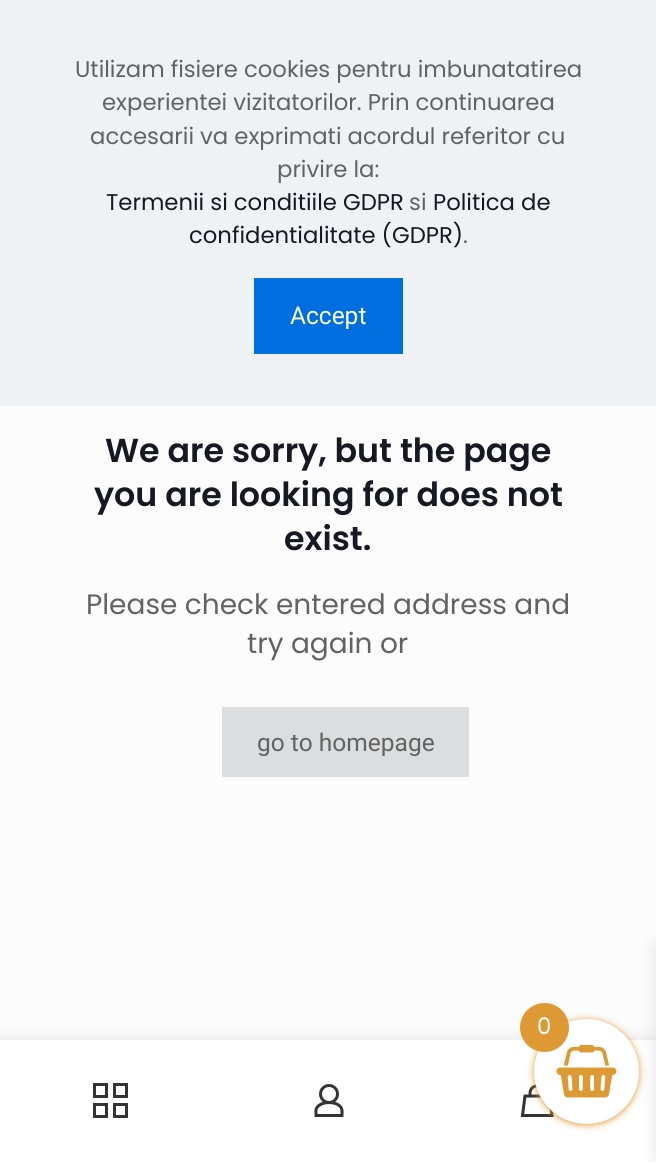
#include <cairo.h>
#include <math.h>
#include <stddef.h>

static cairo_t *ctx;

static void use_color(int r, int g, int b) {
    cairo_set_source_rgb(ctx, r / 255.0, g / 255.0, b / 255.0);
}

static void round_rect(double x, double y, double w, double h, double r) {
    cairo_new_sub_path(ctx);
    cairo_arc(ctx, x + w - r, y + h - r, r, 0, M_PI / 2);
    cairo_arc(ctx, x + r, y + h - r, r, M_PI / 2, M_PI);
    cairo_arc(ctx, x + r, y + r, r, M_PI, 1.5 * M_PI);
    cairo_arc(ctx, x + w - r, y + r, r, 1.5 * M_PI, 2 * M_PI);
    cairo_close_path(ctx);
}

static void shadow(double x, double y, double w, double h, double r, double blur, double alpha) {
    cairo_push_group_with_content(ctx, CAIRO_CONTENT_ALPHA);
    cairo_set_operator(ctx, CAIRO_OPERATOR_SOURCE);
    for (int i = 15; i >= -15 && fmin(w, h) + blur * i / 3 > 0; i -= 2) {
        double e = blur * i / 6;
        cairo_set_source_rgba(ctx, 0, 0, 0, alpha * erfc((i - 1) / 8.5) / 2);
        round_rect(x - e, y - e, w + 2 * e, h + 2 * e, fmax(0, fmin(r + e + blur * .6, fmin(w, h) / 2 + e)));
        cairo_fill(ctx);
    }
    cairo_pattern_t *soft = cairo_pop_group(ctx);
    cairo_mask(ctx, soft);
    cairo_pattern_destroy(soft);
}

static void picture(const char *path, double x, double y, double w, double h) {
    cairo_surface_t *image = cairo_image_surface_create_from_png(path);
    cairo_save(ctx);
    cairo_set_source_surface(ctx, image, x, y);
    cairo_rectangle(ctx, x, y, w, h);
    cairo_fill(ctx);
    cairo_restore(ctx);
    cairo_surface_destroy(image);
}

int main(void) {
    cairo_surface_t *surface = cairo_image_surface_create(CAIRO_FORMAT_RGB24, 656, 1162);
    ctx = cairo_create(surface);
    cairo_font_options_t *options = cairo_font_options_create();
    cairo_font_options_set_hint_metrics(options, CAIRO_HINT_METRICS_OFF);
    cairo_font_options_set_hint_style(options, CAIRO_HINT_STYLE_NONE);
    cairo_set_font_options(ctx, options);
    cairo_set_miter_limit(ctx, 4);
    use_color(252, 252, 252);
    cairo_paint(ctx);
    use_color(238, 242, 245);
    cairo_rectangle(ctx, 0, 0, 656, 406);
    cairo_fill(ctx);
    cairo_select_font_face(ctx, "Poppins", CAIRO_FONT_SLANT_NORMAL, CAIRO_FONT_WEIGHT_NORMAL);
    cairo_set_font_size(ctx, 22.75);
    use_color(98, 98, 98);
    cairo_move_to(ctx, 75, 77);
    cairo_show_text(ctx, "Utilizam fisiere cookies pentru imbunatatirea");
    cairo_move_to(ctx, 102, 110);
    cairo_show_text(ctx, "experientei vizitatorilor. Prin continuarea");
    cairo_move_to(ctx, 90, 144);
    cairo_show_text(ctx, "accesarii va exprimati acordul referitor cu");
    cairo_move_to(ctx, 277, 177);
    cairo_show_text(ctx, "privire la:");
    use_color(22, 25, 34);
    cairo_move_to(ctx, 106, 210);
    cairo_show_text(ctx, "Termenii si conditiile GDPR");
    use_color(98, 98, 98);
    cairo_move_to(ctx, 409, 210);
    cairo_show_text(ctx, "si");
    use_color(22, 25, 34);
    cairo_move_to(ctx, 433, 210);
    cairo_show_text(ctx, "Politica de");
    cairo_move_to(ctx, 189, 243);
    cairo_show_text(ctx, "confidentialitate (GDPR)");
    use_color(98, 98, 98);
    cairo_move_to(ctx, 463, 243);
    cairo_show_text(ctx, ".");
    use_color(0, 110, 223);
    cairo_rectangle(ctx, 254, 278, 149, 76);
    cairo_fill(ctx);
    cairo_select_font_face(ctx, "Roboto", CAIRO_FONT_SLANT_NORMAL, CAIRO_FONT_WEIGHT_NORMAL);
    cairo_set_font_size(ctx, 24.5);
    use_color(255, 255, 255);
    cairo_move_to(ctx, 290, 324);
    cairo_show_text(ctx, "Accept");
    cairo_select_font_face(ctx, "Poppins SemiBold", CAIRO_FONT_SLANT_NORMAL, CAIRO_FONT_WEIGHT_NORMAL);
    cairo_set_font_size(ctx, 33.25);
    use_color(22, 25, 34);
    cairo_move_to(ctx, 105, 462);
    cairo_show_text(ctx, "We are sorry, but the page");
    cairo_move_to(ctx, 94, 506);
    cairo_show_text(ctx, "you are looking for does not");
    cairo_move_to(ctx, 284, 550);
    cairo_show_text(ctx, "exist.");
    cairo_select_font_face(ctx, "Poppins", CAIRO_FONT_SLANT_NORMAL, CAIRO_FONT_WEIGHT_NORMAL);
    cairo_set_font_size(ctx, 28);
    use_color(98, 98, 98);
    cairo_move_to(ctx, 86, 614);
    cairo_show_text(ctx, "Please check entered address and");
    cairo_move_to(ctx, 247, 653);
    cairo_show_text(ctx, "try again or");
    use_color(219, 221, 223);
    cairo_rectangle(ctx, 222, 707, 247, 70);
    cairo_fill(ctx);
    cairo_select_font_face(ctx, "Roboto", CAIRO_FONT_SLANT_NORMAL, CAIRO_FONT_WEIGHT_NORMAL);
    cairo_set_font_size(ctx, 24.5);
    use_color(98, 98, 98);
    cairo_move_to(ctx, 257, 751);
    cairo_show_text(ctx, "go to homepage");
    use_color(0, 0, 0);
    shadow(0, 1040, 656, 122, 0, 9, 0.1);
    use_color(255, 255, 255);
    cairo_rectangle(ctx, 0, 1040, 656, 122);
    cairo_fill(ctx);
    cairo_rectangle(ctx, 114.5, 1084.5, 12, 12);
    use_color(51, 51, 51);
    cairo_set_line_width(ctx, 3);
    cairo_stroke(ctx);
    cairo_rectangle(ctx, 94.5, 1084.5, 12, 12);
    cairo_stroke(ctx);
    cairo_rectangle(ctx, 94.5, 1104.5, 12, 12);
    cairo_stroke(ctx);
    cairo_rectangle(ctx, 114.5, 1104.5, 12, 12);
    cairo_stroke(ctx);
    cairo_arc(ctx, 329, 1094, 8.5, 0, 2 * M_PI);
    cairo_stroke(ctx);
    cairo_new_path(ctx);
    cairo_move_to(ctx, 342, 1111);
    cairo_line_to(ctx, 342, 1115.5);
    cairo_line_to(ctx, 316, 1115.5);
    cairo_line_to(ctx, 316, 1109.5);
    cairo_curve_to(ctx, 319, 1099.5, 342, 1100.5, 342, 1111);
    cairo_close_path(ctx);
    cairo_stroke(ctx);
    cairo_new_path(ctx);
    cairo_move_to(ctx, 552, 1115.5);
    cairo_line_to(ctx, 522.5, 1115.5);
    cairo_line_to(ctx, 525, 1096);
    cairo_line_to(ctx, 549.5, 1096);
    cairo_close_path(ctx);
    cairo_move_to(ctx, 530, 1096);
    cairo_line_to(ctx, 530, 1093.5);
    cairo_curve_to(ctx, 530, 1089, 533, 1086, 537, 1086);
    cairo_curve_to(ctx, 541.5, 1086, 544.5, 1089, 544.5, 1093.5);
    cairo_line_to(ctx, 544.5, 1096);
    cairo_stroke(ctx);
    use_color(221, 153, 51);
    shadow(534, 1020, 105, 105, 52.5, 3.5, 1);
    use_color(0, 0, 0);
    shadow(656, 947, 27, 213, 0, 9, 0.1);
    use_color(255, 255, 255);
    cairo_arc(ctx, 586.5, 1071.5, 52.5, 0, 2 * M_PI);
    cairo_fill(ctx);
    picture("img1.png", 556, 1045, 61, 53);
    use_color(221, 153, 51);
    cairo_arc(ctx, 544.5, 1027.5, 24.5, 0, 2 * M_PI);
    cairo_fill(ctx);
    cairo_select_font_face(ctx, "Poppins", CAIRO_FONT_SLANT_NORMAL, CAIRO_FONT_WEIGHT_NORMAL);
    cairo_set_font_size(ctx, 22.75);
    use_color(255, 255, 255);
    cairo_move_to(ctx, 537, 1034);
    cairo_show_text(ctx, "0");
    cairo_surface_write_to_png(surface, "result.png");
    cairo_font_options_destroy(options);
    cairo_destroy(ctx);
    cairo_surface_destroy(surface);
    return 0;
}
